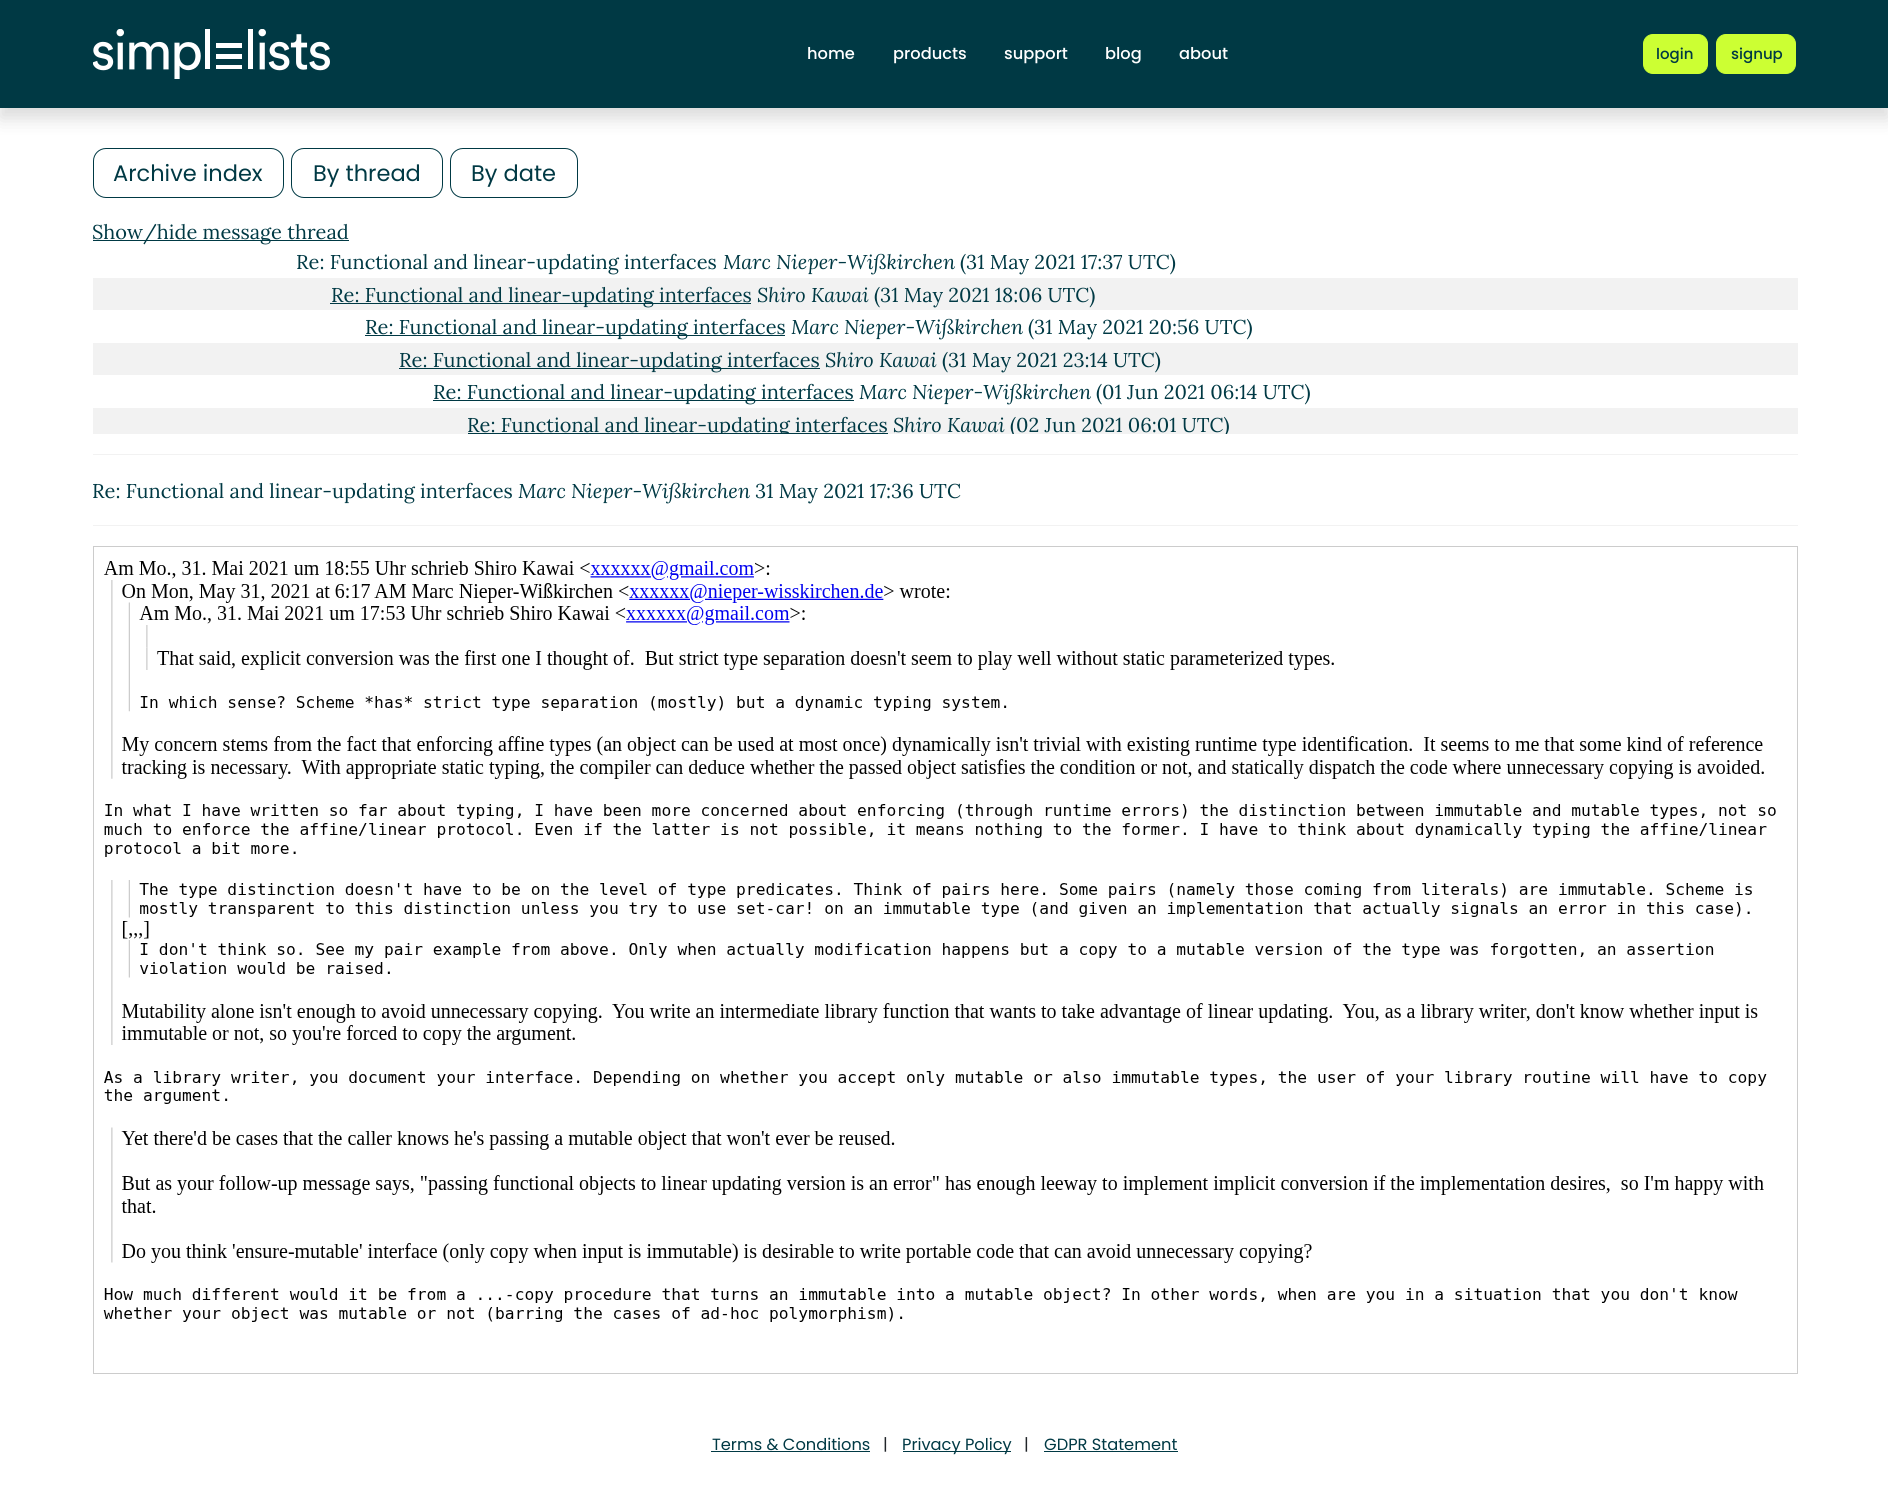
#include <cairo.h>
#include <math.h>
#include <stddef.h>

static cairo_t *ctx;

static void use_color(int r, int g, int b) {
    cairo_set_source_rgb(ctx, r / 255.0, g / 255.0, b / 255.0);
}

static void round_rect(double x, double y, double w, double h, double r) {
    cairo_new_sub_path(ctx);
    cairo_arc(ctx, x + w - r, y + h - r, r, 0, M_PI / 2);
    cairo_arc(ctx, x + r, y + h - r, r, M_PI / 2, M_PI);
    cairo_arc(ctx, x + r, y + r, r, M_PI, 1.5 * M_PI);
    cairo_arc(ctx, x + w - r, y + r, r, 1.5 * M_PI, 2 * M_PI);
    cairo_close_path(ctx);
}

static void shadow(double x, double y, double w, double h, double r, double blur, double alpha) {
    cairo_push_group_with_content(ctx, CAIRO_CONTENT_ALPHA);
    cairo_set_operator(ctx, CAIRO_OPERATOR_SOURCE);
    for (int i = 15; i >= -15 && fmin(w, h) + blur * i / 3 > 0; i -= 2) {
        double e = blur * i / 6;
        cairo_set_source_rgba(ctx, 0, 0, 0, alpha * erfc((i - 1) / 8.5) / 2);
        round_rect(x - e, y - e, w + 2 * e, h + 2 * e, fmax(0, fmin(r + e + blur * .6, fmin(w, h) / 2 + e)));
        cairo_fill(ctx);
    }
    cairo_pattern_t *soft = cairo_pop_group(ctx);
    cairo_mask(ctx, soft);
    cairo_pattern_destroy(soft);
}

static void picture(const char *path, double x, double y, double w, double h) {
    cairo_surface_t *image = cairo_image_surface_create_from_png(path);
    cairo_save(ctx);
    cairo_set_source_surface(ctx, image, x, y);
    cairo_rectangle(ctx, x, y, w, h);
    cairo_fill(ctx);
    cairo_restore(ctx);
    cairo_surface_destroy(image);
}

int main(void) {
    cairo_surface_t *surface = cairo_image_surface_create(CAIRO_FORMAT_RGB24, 1888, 1504);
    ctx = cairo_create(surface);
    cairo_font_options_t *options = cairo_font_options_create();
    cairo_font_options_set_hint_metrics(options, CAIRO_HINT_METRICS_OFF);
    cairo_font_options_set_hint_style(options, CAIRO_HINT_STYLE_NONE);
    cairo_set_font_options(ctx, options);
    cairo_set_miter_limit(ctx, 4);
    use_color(255, 255, 255);
    cairo_paint(ctx);
    use_color(0, 0, 0);
    shadow(0, 10, 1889, 108, 0, 9.5, 0.15);
    use_color(0, 57, 68);
    cairo_rectangle(ctx, 0, 0, 1888, 108);
    cairo_fill(ctx);
    picture("img1.png", 93, 29, 237, 50);
    cairo_select_font_face(ctx, "Poppins Medium", CAIRO_FONT_SLANT_NORMAL, CAIRO_FONT_WEIGHT_NORMAL);
    cairo_set_font_size(ctx, 16.25);
    use_color(255, 255, 255);
    cairo_move_to(ctx, 807, 59);
    cairo_show_text(ctx, "home");
    cairo_move_to(ctx, 893, 59);
    cairo_show_text(ctx, "products");
    cairo_move_to(ctx, 1004, 59);
    cairo_show_text(ctx, "support");
    cairo_move_to(ctx, 1105, 59);
    cairo_show_text(ctx, "blog");
    cairo_move_to(ctx, 1179, 59);
    cairo_show_text(ctx, "about");
    use_color(204, 255, 51);
    round_rect(1643.5, 34.5, 64, 39, 9.5);
    cairo_fill_preserve(ctx);
    cairo_set_line_width(ctx, 1);
    cairo_stroke(ctx);
    cairo_set_font_size(ctx, 15);
    use_color(0, 57, 68);
    cairo_move_to(ctx, 1656, 59);
    cairo_show_text(ctx, "login");
    use_color(204, 255, 51);
    round_rect(1716.5, 34.5, 79, 39, 9.5);
    cairo_fill_preserve(ctx);
    cairo_stroke(ctx);
    use_color(0, 57, 68);
    cairo_move_to(ctx, 1731, 59);
    cairo_show_text(ctx, "signup");
    round_rect(93.5, 148.5, 190, 49, 12.5);
    cairo_stroke(ctx);
    cairo_select_font_face(ctx, "Poppins", CAIRO_FONT_SLANT_NORMAL, CAIRO_FONT_WEIGHT_NORMAL);
    cairo_set_font_size(ctx, 22.5);
    cairo_move_to(ctx, 113, 181);
    cairo_show_text(ctx, "Archive index");
    round_rect(291.5, 148.5, 151, 49, 12.5);
    cairo_stroke(ctx);
    cairo_move_to(ctx, 313, 181);
    cairo_show_text(ctx, "By thread");
    round_rect(450.5, 148.5, 127, 49, 12.5);
    cairo_stroke(ctx);
    cairo_move_to(ctx, 471, 181);
    cairo_show_text(ctx, "By date");
    cairo_rectangle(ctx, 93, 240, 256, 1);
    cairo_fill(ctx);
    cairo_select_font_face(ctx, "Lora", CAIRO_FONT_SLANT_NORMAL, CAIRO_FONT_WEIGHT_NORMAL);
    cairo_set_font_size(ctx, 20);
    cairo_move_to(ctx, 92, 239);
    cairo_show_text(ctx, "Show/hide message thread");
    cairo_move_to(ctx, 296, 269);
    cairo_show_text(ctx, "Re: Functional and linear-updating interfaces");
    cairo_select_font_face(ctx, "Lora", CAIRO_FONT_SLANT_ITALIC, CAIRO_FONT_WEIGHT_NORMAL);
    cairo_move_to(ctx, 723, 269);
    cairo_show_text(ctx, "Marc Nieper-Wißkirchen");
    cairo_select_font_face(ctx, "Lora", CAIRO_FONT_SLANT_NORMAL, CAIRO_FONT_WEIGHT_NORMAL);
    cairo_move_to(ctx, 960, 269);
    cairo_show_text(ctx, "(31 May 2021 17:37 UTC)");
    use_color(242, 242, 242);
    cairo_rectangle(ctx, 93, 278, 1705, 32);
    cairo_fill(ctx);
    use_color(0, 57, 68);
    cairo_rectangle(ctx, 330, 303, 421, 1);
    cairo_fill(ctx);
    cairo_move_to(ctx, 331, 302);
    cairo_show_text(ctx, "Re: Functional and linear-updating interfaces");
    cairo_select_font_face(ctx, "Lora", CAIRO_FONT_SLANT_ITALIC, CAIRO_FONT_WEIGHT_NORMAL);
    cairo_move_to(ctx, 757, 302);
    cairo_show_text(ctx, "Shiro Kawai");
    cairo_select_font_face(ctx, "Lora", CAIRO_FONT_SLANT_NORMAL, CAIRO_FONT_WEIGHT_NORMAL);
    cairo_move_to(ctx, 874, 302);
    cairo_show_text(ctx, "(31 May 2021 18:06 UTC)");
    cairo_rectangle(ctx, 365, 335, 420, 1);
    cairo_fill(ctx);
    cairo_move_to(ctx, 365, 334);
    cairo_show_text(ctx, "Re: Functional and linear-updating interfaces");
    cairo_select_font_face(ctx, "Lora", CAIRO_FONT_SLANT_ITALIC, CAIRO_FONT_WEIGHT_NORMAL);
    cairo_move_to(ctx, 791, 334);
    cairo_show_text(ctx, "Marc Nieper-Wißkirchen");
    cairo_select_font_face(ctx, "Lora", CAIRO_FONT_SLANT_NORMAL, CAIRO_FONT_WEIGHT_NORMAL);
    cairo_move_to(ctx, 1028, 334);
    cairo_show_text(ctx, "(31 May 2021 20:56 UTC)");
    use_color(242, 242, 242);
    cairo_rectangle(ctx, 93, 343, 1705, 32);
    cairo_fill(ctx);
    use_color(0, 57, 68);
    cairo_rectangle(ctx, 399, 368, 421, 1);
    cairo_fill(ctx);
    cairo_move_to(ctx, 399, 367);
    cairo_show_text(ctx, "Re: Functional and linear-updating interfaces");
    cairo_select_font_face(ctx, "Lora", CAIRO_FONT_SLANT_ITALIC, CAIRO_FONT_WEIGHT_NORMAL);
    cairo_move_to(ctx, 825, 367);
    cairo_show_text(ctx, "Shiro Kawai");
    cairo_select_font_face(ctx, "Lora", CAIRO_FONT_SLANT_NORMAL, CAIRO_FONT_WEIGHT_NORMAL);
    cairo_move_to(ctx, 942, 367);
    cairo_show_text(ctx, "(31 May 2021 23:14 UTC)");
    cairo_rectangle(ctx, 433, 400, 421, 1);
    cairo_fill(ctx);
    cairo_move_to(ctx, 433, 399);
    cairo_show_text(ctx, "Re: Functional and linear-updating interfaces");
    cairo_select_font_face(ctx, "Lora", CAIRO_FONT_SLANT_ITALIC, CAIRO_FONT_WEIGHT_NORMAL);
    cairo_move_to(ctx, 859, 399);
    cairo_show_text(ctx, "Marc Nieper-Wißkirchen");
    cairo_select_font_face(ctx, "Lora", CAIRO_FONT_SLANT_NORMAL, CAIRO_FONT_WEIGHT_NORMAL);
    cairo_move_to(ctx, 1096, 399);
    cairo_show_text(ctx, "(01 Jun 2021 06:14 UTC)");
    use_color(242, 242, 242);
    cairo_rectangle(ctx, 93, 408, 1705, 26);
    cairo_fill(ctx);
    use_color(0, 57, 68);
    cairo_rectangle(ctx, 468, 433, 420, 1);
    cairo_fill(ctx);
    cairo_save(ctx);
    cairo_rectangle(ctx, 468, 409, 1328, 25);
    cairo_clip(ctx);
    cairo_move_to(ctx, 467, 432);
    cairo_show_text(ctx, "Re: Functional and linear-updating interfaces");
    cairo_restore(ctx);
    cairo_select_font_face(ctx, "Lora", CAIRO_FONT_SLANT_ITALIC, CAIRO_FONT_WEIGHT_NORMAL);
    cairo_move_to(ctx, 893, 432);
    cairo_show_text(ctx, "Shiro Kawai");
    cairo_save(ctx);
    cairo_rectangle(ctx, 468, 409, 1328, 25);
    cairo_clip(ctx);
    cairo_select_font_face(ctx, "Lora", CAIRO_FONT_SLANT_NORMAL, CAIRO_FONT_WEIGHT_NORMAL);
    cairo_move_to(ctx, 1010, 432);
    cairo_show_text(ctx, "(02 Jun 2021 06:01 UTC)");
    cairo_restore(ctx);
    use_color(242, 242, 242);
    cairo_rectangle(ctx, 93, 454, 1705, 1);
    cairo_fill(ctx);
    cairo_select_font_face(ctx, "Lora", CAIRO_FONT_SLANT_NORMAL, CAIRO_FONT_WEIGHT_NORMAL);
    use_color(0, 57, 68);
    cairo_move_to(ctx, 92, 498);
    cairo_show_text(ctx, "Re: Functional and linear-updating interfaces");
    cairo_select_font_face(ctx, "Lora", CAIRO_FONT_SLANT_ITALIC, CAIRO_FONT_WEIGHT_NORMAL);
    cairo_move_to(ctx, 518, 498);
    cairo_show_text(ctx, "Marc Nieper-Wißkirchen");
    cairo_select_font_face(ctx, "Lora", CAIRO_FONT_SLANT_NORMAL, CAIRO_FONT_WEIGHT_NORMAL);
    cairo_move_to(ctx, 755, 498);
    cairo_show_text(ctx, "31 May 2021 17:36 UTC");
    use_color(242, 242, 242);
    cairo_rectangle(ctx, 93, 525, 1705, 1);
    cairo_fill(ctx);
    cairo_rectangle(ctx, 93.5, 546.5, 1704, 827);
    use_color(204, 204, 204);
    cairo_stroke(ctx);
    picture("img2.png", 103, 561, 1673, 761);
    cairo_select_font_face(ctx, "Poppins", CAIRO_FONT_SLANT_NORMAL, CAIRO_FONT_WEIGHT_NORMAL);
    cairo_set_font_size(ctx, 16.25);
    use_color(0, 57, 68);
    cairo_move_to(ctx, 712, 1450);
    cairo_show_text(ctx, "Terms & Conditions");
    cairo_rectangle(ctx, 711, 1451, 159, 1);
    cairo_fill(ctx);
    use_color(33, 37, 41);
    cairo_move_to(ctx, 883, 1450);
    cairo_show_text(ctx, "|");
    use_color(0, 57, 68);
    cairo_rectangle(ctx, 903, 1451, 108, 1);
    cairo_fill(ctx);
    cairo_move_to(ctx, 902, 1450);
    cairo_show_text(ctx, "Privacy Policy");
    use_color(33, 37, 41);
    cairo_move_to(ctx, 1024, 1450);
    cairo_show_text(ctx, "|");
    use_color(0, 57, 68);
    cairo_move_to(ctx, 1044, 1450);
    cairo_show_text(ctx, "GDPR Statement");
    cairo_rectangle(ctx, 1044, 1451, 134, 1);
    cairo_fill(ctx);
    cairo_surface_write_to_png(surface, "result.png");
    cairo_font_options_destroy(options);
    cairo_destroy(ctx);
    cairo_surface_destroy(surface);
    return 0;
}
